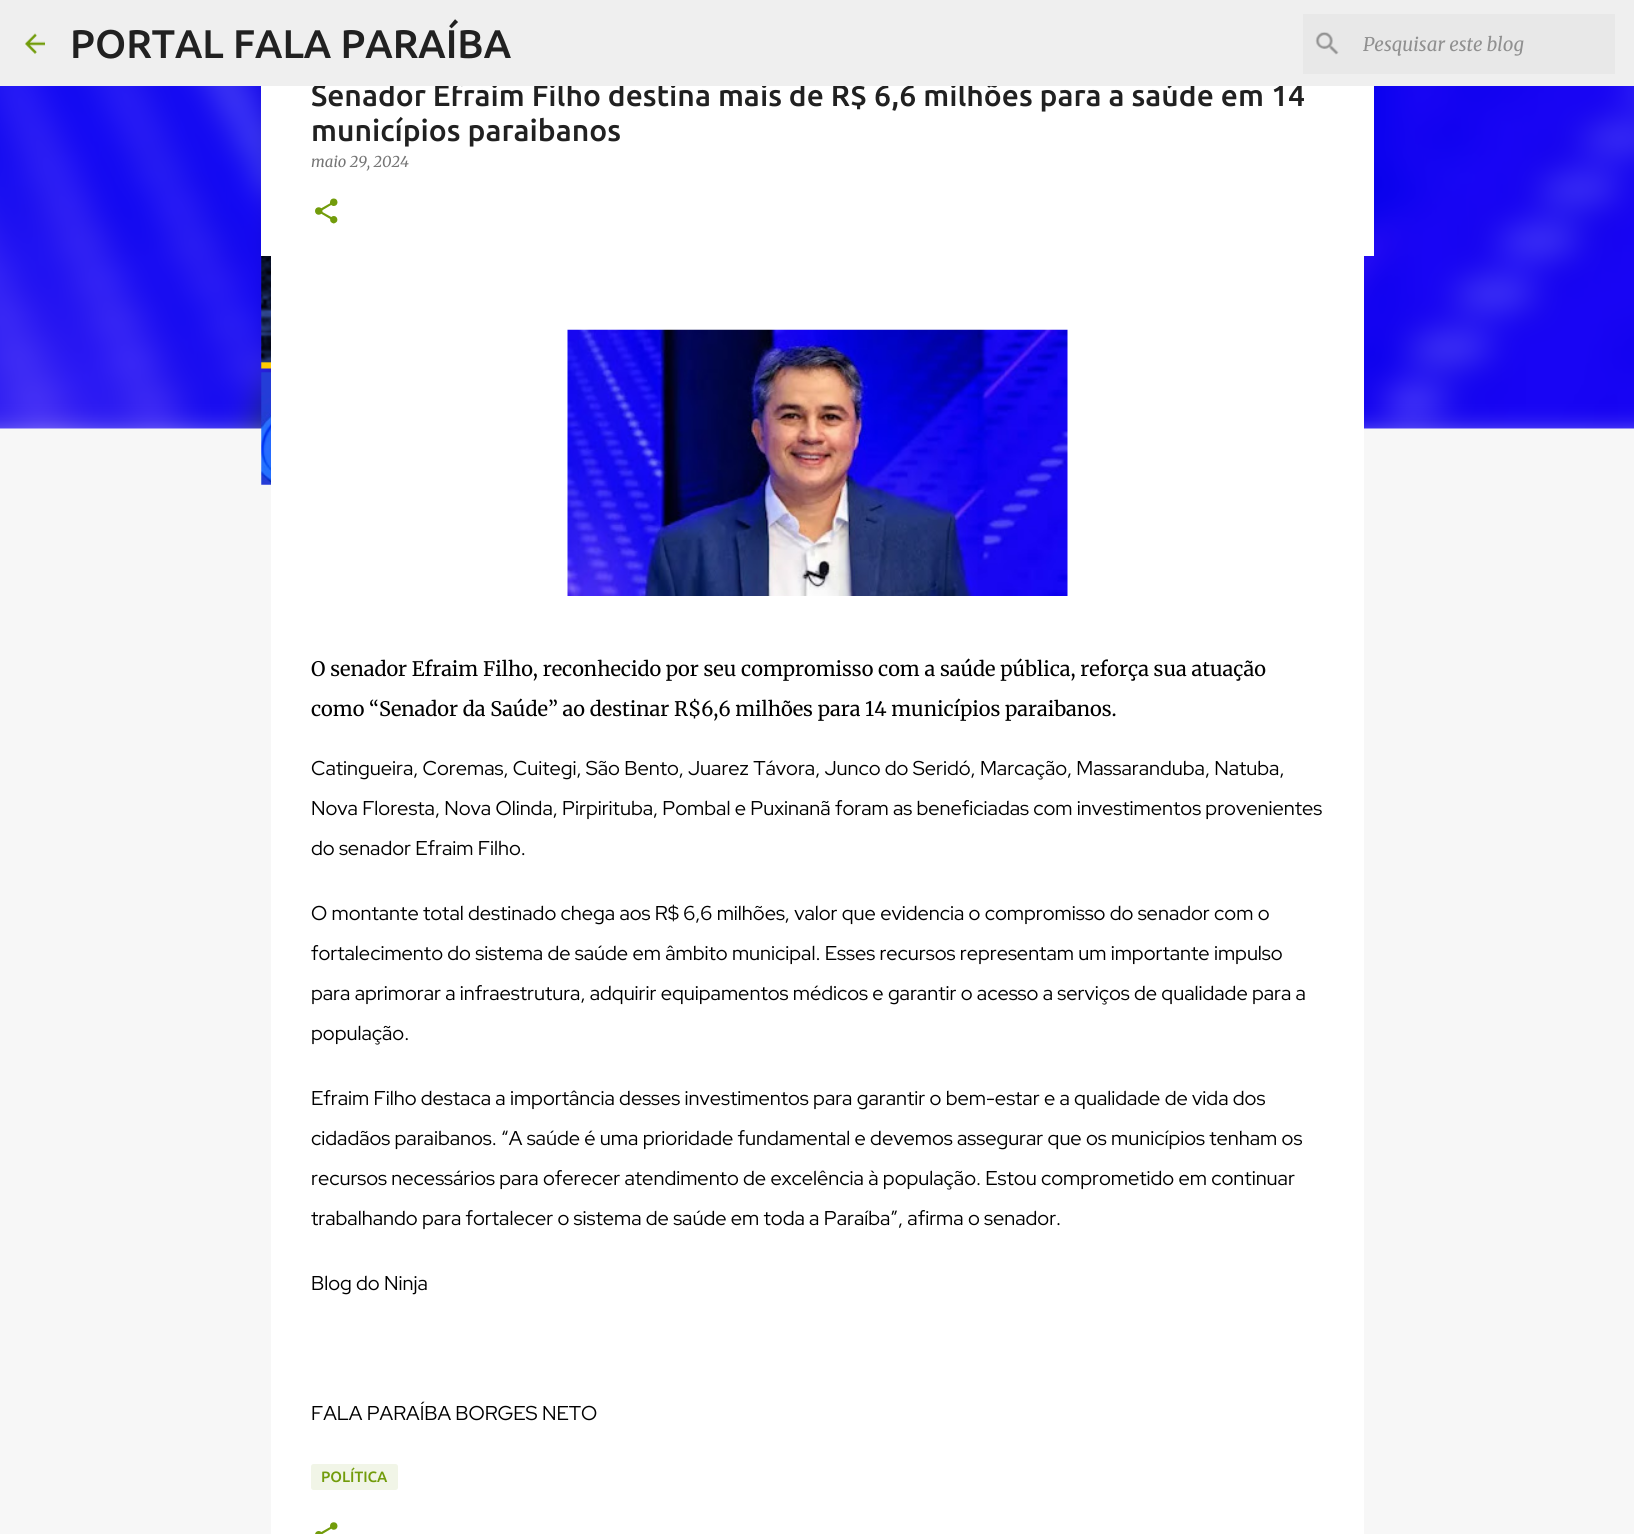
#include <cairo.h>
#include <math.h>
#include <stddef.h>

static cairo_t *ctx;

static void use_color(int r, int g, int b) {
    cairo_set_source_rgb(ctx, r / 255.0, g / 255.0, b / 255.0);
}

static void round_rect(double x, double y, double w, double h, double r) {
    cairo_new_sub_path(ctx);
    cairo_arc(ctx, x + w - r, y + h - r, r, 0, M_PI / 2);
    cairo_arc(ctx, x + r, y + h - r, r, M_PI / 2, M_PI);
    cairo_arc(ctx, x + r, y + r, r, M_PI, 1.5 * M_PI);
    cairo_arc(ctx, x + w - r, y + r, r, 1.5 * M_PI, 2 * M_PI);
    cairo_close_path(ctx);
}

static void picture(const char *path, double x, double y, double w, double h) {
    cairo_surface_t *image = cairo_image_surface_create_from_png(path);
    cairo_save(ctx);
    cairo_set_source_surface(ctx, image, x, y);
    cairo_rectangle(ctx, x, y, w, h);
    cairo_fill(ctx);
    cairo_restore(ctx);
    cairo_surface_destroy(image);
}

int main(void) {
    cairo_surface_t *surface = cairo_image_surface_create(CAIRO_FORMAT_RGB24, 1634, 1534);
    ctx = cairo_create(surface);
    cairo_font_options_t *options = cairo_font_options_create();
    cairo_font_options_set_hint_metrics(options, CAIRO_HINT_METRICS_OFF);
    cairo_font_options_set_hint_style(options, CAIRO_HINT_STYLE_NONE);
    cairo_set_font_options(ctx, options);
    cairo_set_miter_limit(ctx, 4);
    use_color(247, 247, 247);
    cairo_paint(ctx);
    picture("img8.png", 0, 86, 1634, 343);
    use_color(255, 255, 255);
    cairo_rectangle(ctx, 261, 86, 1113, 170);
    cairo_fill(ctx);
    cairo_select_font_face(ctx, "Ubuntu Medium", CAIRO_FONT_SLANT_NORMAL, CAIRO_FONT_WEIGHT_NORMAL);
    cairo_set_font_size(ctx, 30);
    use_color(33, 33, 33);
    cairo_move_to(ctx, 311, 106);
    cairo_show_text(ctx, "Senador Efraim Filho destina mais de R$ 6,6 milhões para a saúde em 14");
    use_color(239, 239, 239);
    cairo_rectangle(ctx, 0, 0, 1634, 86);
    cairo_fill(ctx);
    picture("img1.png", 25, 33, 20, 21);
    cairo_set_font_size(ctx, 40);
    use_color(33, 33, 33);
    cairo_move_to(ctx, 70, 58);
    cairo_show_text(ctx, "PORTAL FALA PARAÍBA");
    use_color(232, 232, 232);
    cairo_rectangle(ctx, 1303, 14, 312, 60);
    cairo_fill(ctx);
    picture("img2.png", 1315, 32, 24, 23);
    cairo_select_font_face(ctx, "Merriweather", CAIRO_FONT_SLANT_ITALIC, CAIRO_FONT_WEIGHT_NORMAL);
    cairo_set_font_size(ctx, 18.75);
    use_color(144, 144, 144);
    cairo_move_to(ctx, 1363, 51);
    cairo_show_text(ctx, "Pesquisar este blog");
    use_color(255, 255, 255);
    cairo_rectangle(ctx, 271, 256, 1093, 1278);
    cairo_fill(ctx);
    cairo_select_font_face(ctx, "Ubuntu Medium", CAIRO_FONT_SLANT_NORMAL, CAIRO_FONT_WEIGHT_NORMAL);
    cairo_set_font_size(ctx, 30);
    use_color(33, 33, 33);
    cairo_move_to(ctx, 311, 141);
    cairo_show_text(ctx, "municípios paraibanos");
    cairo_select_font_face(ctx, "Merriweather", CAIRO_FONT_SLANT_ITALIC, CAIRO_FONT_WEIGHT_NORMAL);
    cairo_set_font_size(ctx, 15);
    use_color(117, 117, 117);
    cairo_move_to(ctx, 311, 167);
    cairo_show_text(ctx, "maio 29, 2024");
    picture("img3.png", 315, 198, 23, 26);
    picture("img4.png", 567, 329, 501, 267);
    cairo_select_font_face(ctx, "Merriweather", CAIRO_FONT_SLANT_NORMAL, CAIRO_FONT_WEIGHT_NORMAL);
    cairo_set_font_size(ctx, 20);
    use_color(0, 0, 0);
    cairo_move_to(ctx, 311, 676);
    cairo_show_text(ctx, "O senador Efraim Filho, reconhecido por seu compromisso com a saúde pública, reforça sua atuação");
    cairo_move_to(ctx, 311, 716);
    cairo_show_text(ctx, "como “Senador da Saúde” ao destinar R$6,6 milhões para 14 municípios paraibanos.");
    cairo_select_font_face(ctx, "Red Hat Display", CAIRO_FONT_SLANT_NORMAL, CAIRO_FONT_WEIGHT_NORMAL);
    cairo_move_to(ctx, 311, 775);
    cairo_show_text(ctx, "Catingueira, Coremas, Cuitegi, São Bento, Juarez Távora, Junco do Seridó, Marcação, Massaranduba, Natuba,");
    cairo_move_to(ctx, 311, 815);
    cairo_show_text(ctx, "Nova Floresta, Nova Olinda, Pirpirituba, Pombal e Puxinanã foram as beneficiadas com investimentos provenientes");
    cairo_move_to(ctx, 311, 855);
    cairo_show_text(ctx, "do senador Efraim Filho.");
    cairo_move_to(ctx, 311, 920);
    cairo_show_text(ctx, "O montante total destinado chega aos R$ 6,6 milhões, valor que evidencia o compromisso do senador com o");
    cairo_move_to(ctx, 311, 960);
    cairo_show_text(ctx, "fortalecimento do sistema de saúde em âmbito municipal. Esses recursos representam um importante impulso");
    cairo_move_to(ctx, 311, 1000);
    cairo_show_text(ctx, "para aprimorar a infraestrutura, adquirir equipamentos médicos e garantir o acesso a serviços de qualidade para a");
    cairo_move_to(ctx, 311, 1040);
    cairo_show_text(ctx, "população.");
    cairo_move_to(ctx, 311, 1105);
    cairo_show_text(ctx, "Efraim Filho destaca a importância desses investimentos para garantir o bem-estar e a qualidade de vida dos");
    cairo_move_to(ctx, 311, 1145);
    cairo_show_text(ctx, "cidadãos paraibanos. “A saúde é uma prioridade fundamental e devemos assegurar que os municípios tenham os");
    cairo_move_to(ctx, 311, 1185);
    cairo_show_text(ctx, "recursos necessários para oferecer atendimento de excelência à população. Estou comprometido em continuar");
    cairo_move_to(ctx, 311, 1225);
    cairo_show_text(ctx, "trabalhando para fortalecer o sistema de saúde em toda a Paraíba”, afirma o senador.");
    cairo_move_to(ctx, 311, 1290);
    cairo_show_text(ctx, "Blog do Ninja");
    cairo_move_to(ctx, 311, 1420);
    cairo_show_text(ctx, "FALA PARAÍBA BORGES NETO");
    use_color(241, 245, 231);
    round_rect(311, 1464, 87, 26, 2.5);
    cairo_fill(ctx);
    cairo_select_font_face(ctx, "Ubuntu Medium", CAIRO_FONT_SLANT_NORMAL, CAIRO_FONT_WEIGHT_NORMAL);
    cairo_set_font_size(ctx, 15);
    use_color(114, 156, 11);
    cairo_move_to(ctx, 321, 1482);
    cairo_show_text(ctx, "POLÍTICA");
    picture("img5.png", 315, 1522, 23, 12);
    picture("img6.png", 261, 256, 10, 113);
    picture("img7.png", 261, 372, 10, 113);
    cairo_surface_write_to_png(surface, "result.png");
    cairo_font_options_destroy(options);
    cairo_destroy(ctx);
    cairo_surface_destroy(surface);
    return 0;
}
